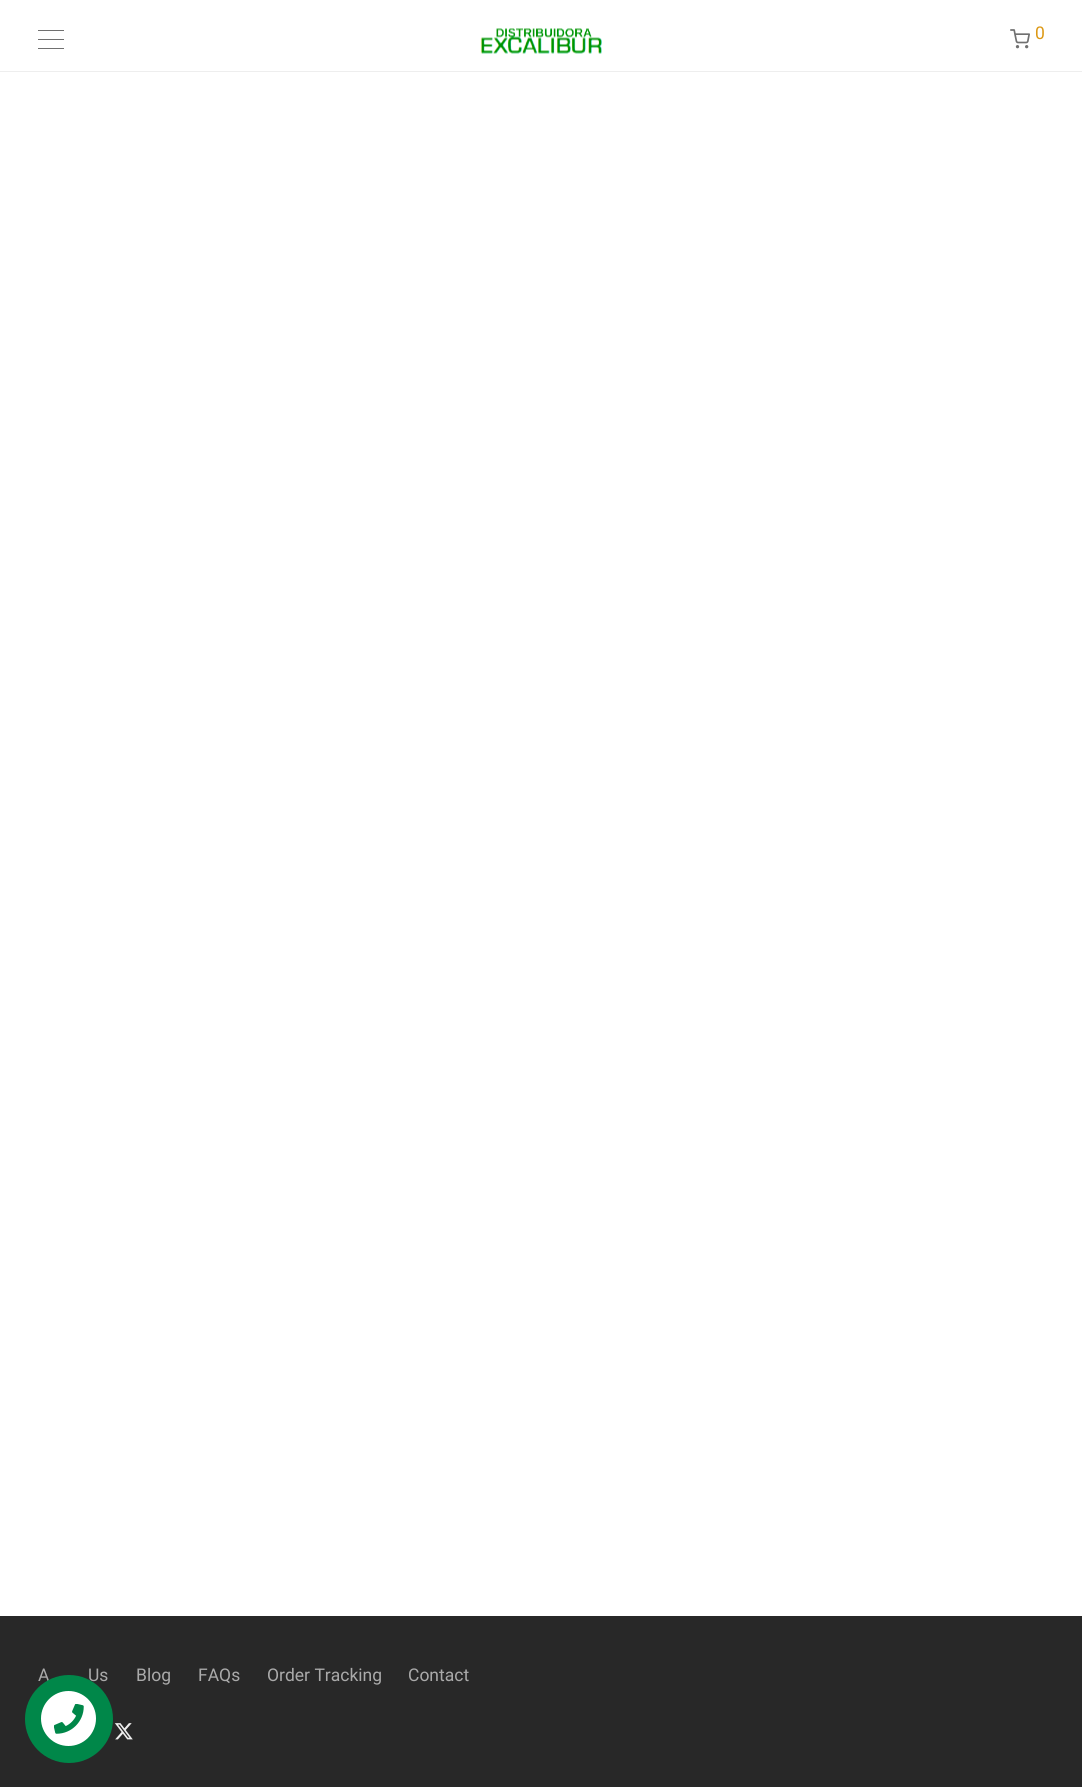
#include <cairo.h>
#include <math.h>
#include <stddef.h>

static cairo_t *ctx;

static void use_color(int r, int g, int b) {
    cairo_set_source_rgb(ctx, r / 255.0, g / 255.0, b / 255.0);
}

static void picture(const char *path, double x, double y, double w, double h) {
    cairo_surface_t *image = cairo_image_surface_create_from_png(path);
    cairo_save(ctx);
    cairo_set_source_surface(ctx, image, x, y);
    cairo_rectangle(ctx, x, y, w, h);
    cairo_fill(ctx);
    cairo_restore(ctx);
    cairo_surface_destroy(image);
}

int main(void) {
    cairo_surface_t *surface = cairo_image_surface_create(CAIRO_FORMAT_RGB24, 1082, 1787);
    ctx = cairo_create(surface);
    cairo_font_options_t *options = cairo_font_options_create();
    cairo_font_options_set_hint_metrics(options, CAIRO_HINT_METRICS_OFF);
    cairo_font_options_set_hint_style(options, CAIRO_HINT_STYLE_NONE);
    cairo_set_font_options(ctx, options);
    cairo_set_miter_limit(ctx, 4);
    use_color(255, 255, 255);
    cairo_paint(ctx);
    use_color(238, 238, 238);
    cairo_rectangle(ctx, 0, 71, 1082, 1);
    cairo_fill(ctx);
    use_color(112, 112, 112);
    cairo_rectangle(ctx, 38, 30, 26, 1);
    cairo_fill(ctx);
    cairo_rectangle(ctx, 38, 39, 26, 1);
    cairo_fill(ctx);
    cairo_rectangle(ctx, 38, 48, 26, 1);
    cairo_fill(ctx);
    picture("img1.png", 480, 28, 122, 26);
    picture("img2.png", 1010, 29, 20, 20);
    cairo_select_font_face(ctx, "Roboto", CAIRO_FONT_SLANT_NORMAL, CAIRO_FONT_WEIGHT_NORMAL);
    cairo_set_font_size(ctx, 17.5);
    use_color(220, 152, 20);
    cairo_move_to(ctx, 1035, 39);
    cairo_show_text(ctx, "0");
    use_color(40, 40, 40);
    cairo_rectangle(ctx, 0, 1616, 1082, 171);
    cairo_fill(ctx);
    use_color(170, 170, 170);
    cairo_move_to(ctx, 38, 1681);
    cairo_show_text(ctx, "A");
    cairo_move_to(ctx, 88, 1681);
    cairo_show_text(ctx, "Us");
    cairo_move_to(ctx, 136, 1681);
    cairo_show_text(ctx, "Blog");
    cairo_move_to(ctx, 198, 1681);
    cairo_show_text(ctx, "FAQs");
    cairo_move_to(ctx, 267, 1681);
    cairo_show_text(ctx, "Order Tracking");
    cairo_move_to(ctx, 408, 1681);
    cairo_show_text(ctx, "Contact");
    picture("img3.png", 114, 1723, 19, 17);
    use_color(0, 135, 73);
    cairo_arc(ctx, 69, 1719, 44, 0, 2 * M_PI);
    cairo_fill(ctx);
    use_color(255, 255, 255);
    cairo_arc(ctx, 68.5, 1718.5, 27.5, 0, 2 * M_PI);
    cairo_fill(ctx);
    picture("img4.png", 54, 1704, 30, 30);
    cairo_surface_write_to_png(surface, "result.png");
    cairo_font_options_destroy(options);
    cairo_destroy(ctx);
    cairo_surface_destroy(surface);
    return 0;
}
